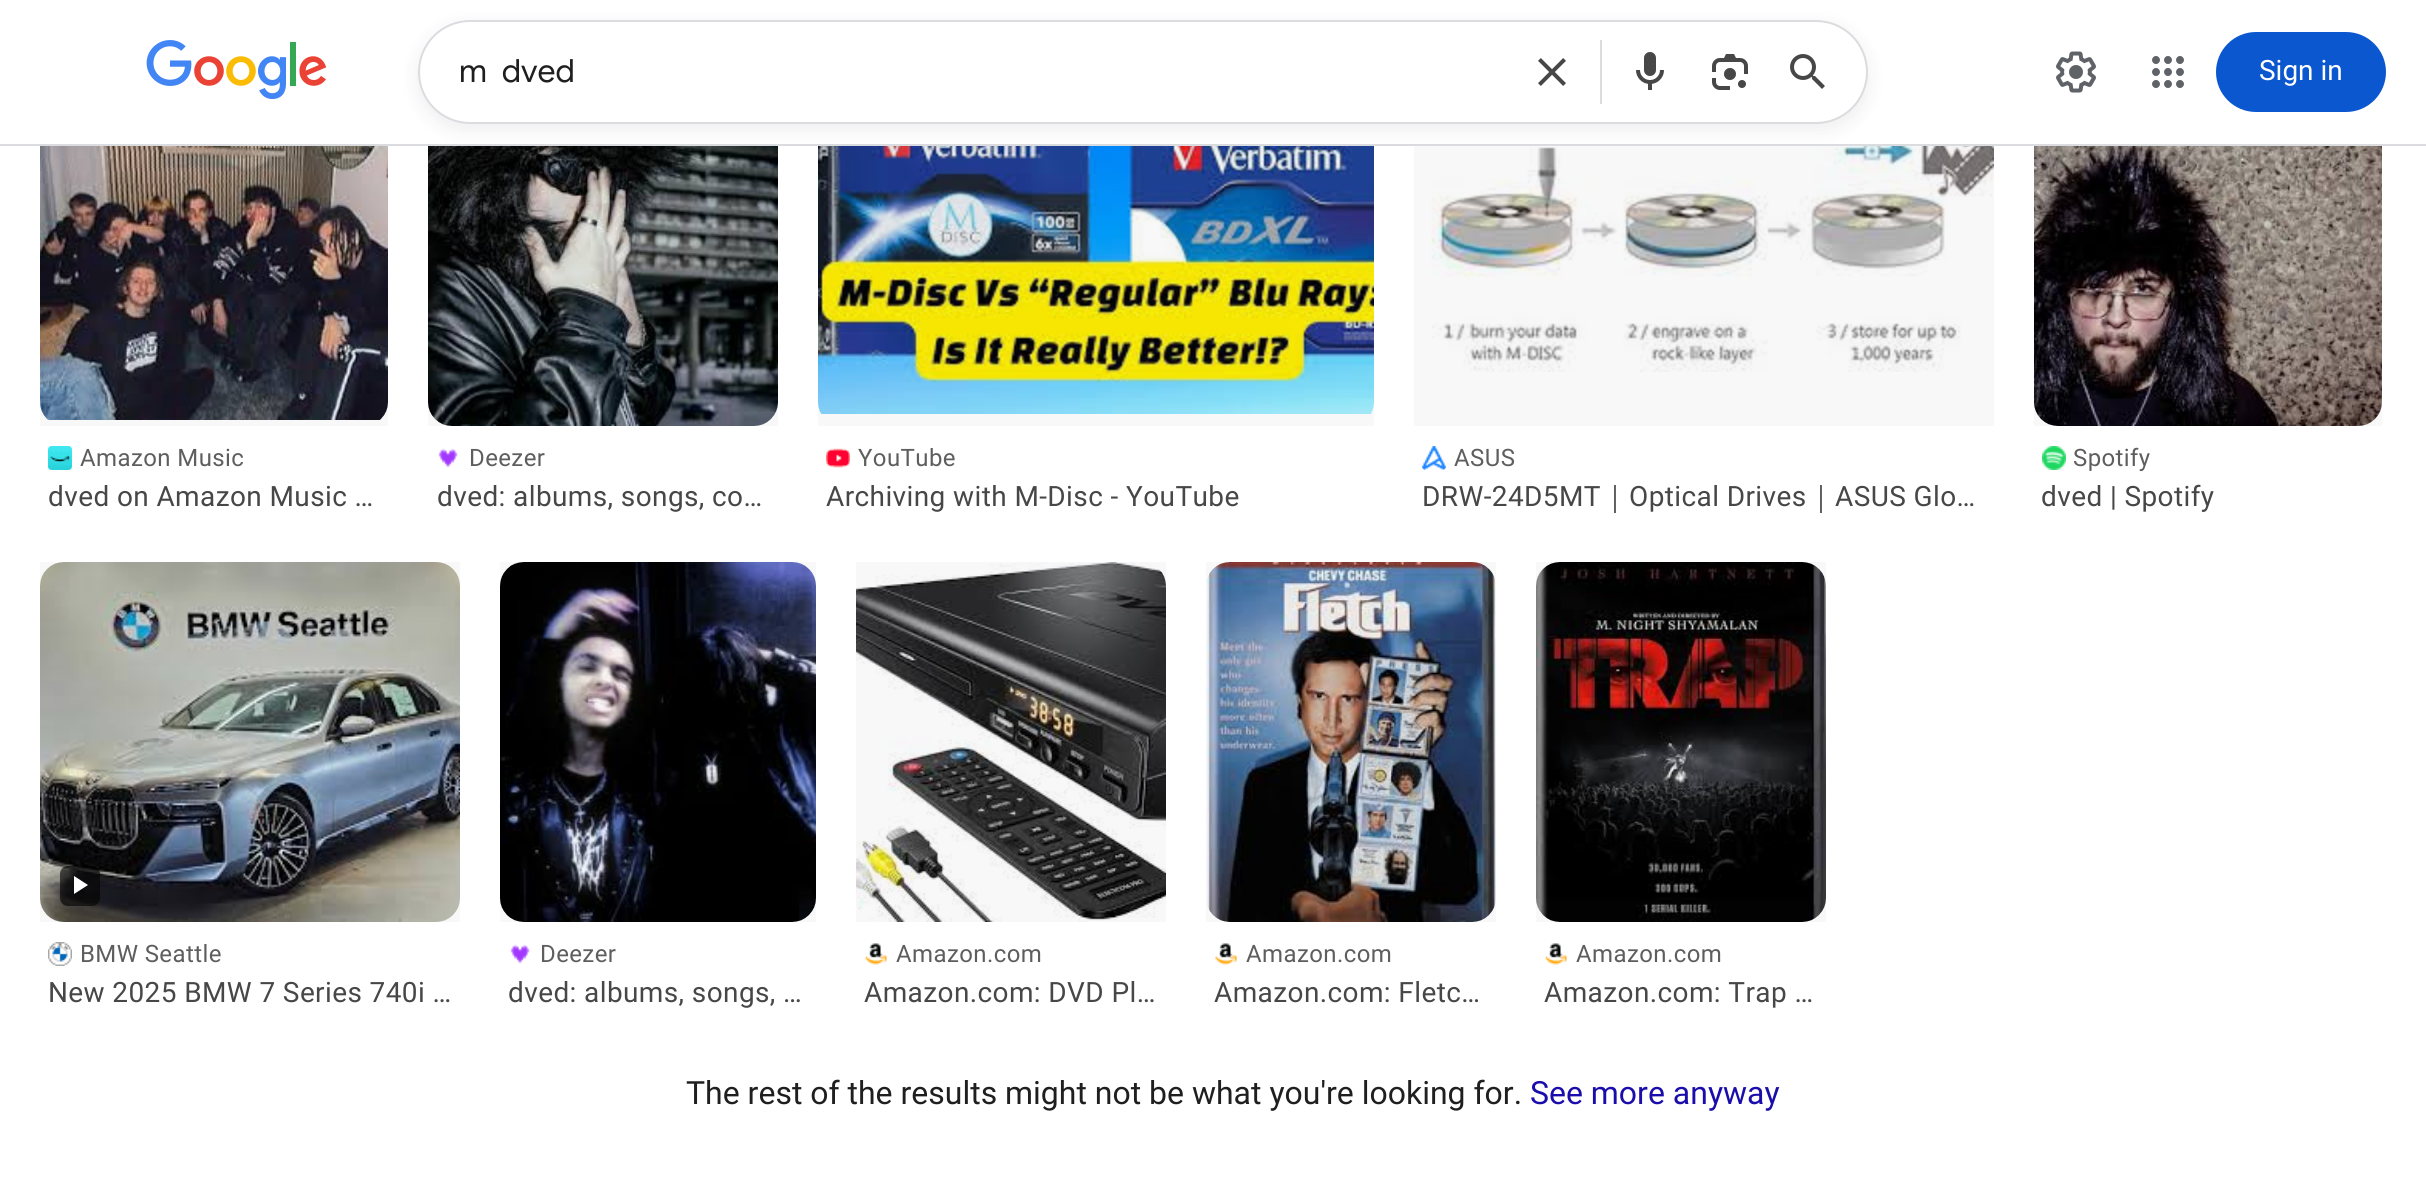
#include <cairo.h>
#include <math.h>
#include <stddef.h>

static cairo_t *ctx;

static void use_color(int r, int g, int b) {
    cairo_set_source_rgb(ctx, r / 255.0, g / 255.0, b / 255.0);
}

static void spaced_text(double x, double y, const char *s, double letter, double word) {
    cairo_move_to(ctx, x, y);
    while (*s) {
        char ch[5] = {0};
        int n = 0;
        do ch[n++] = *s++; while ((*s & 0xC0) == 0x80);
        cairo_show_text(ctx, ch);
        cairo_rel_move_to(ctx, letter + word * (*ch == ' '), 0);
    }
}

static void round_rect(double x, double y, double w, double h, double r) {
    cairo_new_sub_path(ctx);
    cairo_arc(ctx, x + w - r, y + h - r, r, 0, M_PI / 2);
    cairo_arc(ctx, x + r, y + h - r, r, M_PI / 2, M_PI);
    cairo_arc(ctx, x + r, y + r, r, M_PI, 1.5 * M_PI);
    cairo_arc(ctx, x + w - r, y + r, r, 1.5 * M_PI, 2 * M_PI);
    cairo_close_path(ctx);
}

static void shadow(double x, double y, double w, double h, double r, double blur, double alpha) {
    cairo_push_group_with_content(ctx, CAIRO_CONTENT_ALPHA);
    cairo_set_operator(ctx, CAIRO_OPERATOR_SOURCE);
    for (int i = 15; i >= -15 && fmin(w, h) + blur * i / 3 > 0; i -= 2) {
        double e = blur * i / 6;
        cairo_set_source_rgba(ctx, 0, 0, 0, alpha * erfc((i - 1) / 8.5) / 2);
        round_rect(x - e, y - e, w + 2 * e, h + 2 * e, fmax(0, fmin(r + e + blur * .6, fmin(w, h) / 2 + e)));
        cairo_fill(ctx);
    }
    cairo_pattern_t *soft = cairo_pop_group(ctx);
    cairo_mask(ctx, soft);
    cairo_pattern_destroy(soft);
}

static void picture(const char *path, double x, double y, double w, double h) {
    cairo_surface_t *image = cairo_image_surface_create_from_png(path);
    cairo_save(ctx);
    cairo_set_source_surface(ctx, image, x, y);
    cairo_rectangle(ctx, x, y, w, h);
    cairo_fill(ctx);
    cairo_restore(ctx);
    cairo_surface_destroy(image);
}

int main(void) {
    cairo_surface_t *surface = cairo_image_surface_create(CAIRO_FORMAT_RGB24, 2426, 1203);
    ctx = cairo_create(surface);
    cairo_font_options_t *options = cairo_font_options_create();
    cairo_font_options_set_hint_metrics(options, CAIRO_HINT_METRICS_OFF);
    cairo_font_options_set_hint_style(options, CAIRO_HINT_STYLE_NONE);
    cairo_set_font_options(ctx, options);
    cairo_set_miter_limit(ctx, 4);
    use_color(255, 255, 255);
    cairo_paint(ctx);
    use_color(218, 220, 224);
    cairo_rectangle(ctx, 0, 144, 2426, 2);
    cairo_fill(ctx);
    picture("img1.png", 146, 40, 181, 60);
    picture("img8.png", 40, 146, 348, 274);
    cairo_set_source_rgba(ctx, 0, 0, 0, 0.03);
    cairo_rectangle(ctx, 40, 146, 348, 280);
    cairo_fill(ctx);
    picture("img10.png", 428, 146, 350, 280);
    cairo_rectangle(ctx, 428, 147, 350, 279);
    cairo_fill(ctx);
    picture("img12.png", 818, 146, 556, 268);
    cairo_rectangle(ctx, 818, 146, 556, 280);
    cairo_fill(ctx);
    picture("img14.png", 1431, 146, 563, 226);
    cairo_rectangle(ctx, 1414, 146, 580, 280);
    cairo_fill(ctx);
    use_color(31, 31, 31);
    shadow(418, 26, 1450, 104, 52, 10, 0.08);
    use_color(255, 255, 255);
    round_rect(419, 21, 1448, 102, 51);
    cairo_fill_preserve(ctx);
    use_color(218, 220, 224);
    cairo_stroke(ctx);
    cairo_select_font_face(ctx, "Google Sans", CAIRO_FONT_SLANT_NORMAL, CAIRO_FONT_WEIGHT_NORMAL);
    cairo_set_font_size(ctx, 32);
    use_color(31, 31, 31);
    cairo_move_to(ctx, 459, 82);
    cairo_show_text(ctx, "m  dved");
    picture("img2.png", 1538, 58, 28, 28);
    use_color(218, 220, 224);
    cairo_rectangle(ctx, 1600, 40, 2, 64);
    cairo_fill(ctx);
    picture("img3.png", 1636, 52, 28, 38);
    picture("img4.png", 1712, 54, 36, 36);
    picture("img5.png", 1790, 54, 35, 35);
    picture("img6.png", 2056, 51, 40, 42);
    picture("img7.png", 2152, 56, 32, 32);
    use_color(11, 87, 208);
    round_rect(2216, 32, 170, 80, 40);
    cairo_fill(ctx);
    cairo_select_font_face(ctx, "Roboto", CAIRO_FONT_SLANT_NORMAL, CAIRO_FONT_WEIGHT_NORMAL);
    cairo_set_font_size(ctx, 28);
    use_color(255, 255, 255);
    cairo_move_to(ctx, 2259, 80);
    cairo_show_text(ctx, "Sign in");
    picture("img9.png", 48, 446, 24, 24);
    cairo_set_font_size(ctx, 24);
    use_color(94, 94, 94);
    spaced_text(80, 466, "Amazon Music", 0.4, 0);
    cairo_set_font_size(ctx, 28);
    use_color(71, 71, 71);
    spaced_text(48, 506, "dved on Amazon Music …", 0.4, 0);
    picture("img11.png", 438, 448, 20, 20);
    cairo_set_font_size(ctx, 24);
    use_color(94, 94, 94);
    spaced_text(469, 466, "Deezer", 0.4, 0);
    cairo_set_font_size(ctx, 28);
    use_color(71, 71, 71);
    spaced_text(437, 506, "dved: albums, songs, co…", 0.4, 0);
    picture("img13.png", 826, 448, 24, 20);
    cairo_set_font_size(ctx, 24);
    use_color(94, 94, 94);
    spaced_text(858, 466, "YouTube", 0.4, 0);
    cairo_set_font_size(ctx, 28);
    use_color(71, 71, 71);
    spaced_text(826, 506, "Archiving with M-Disc - YouTube", 0.4, 0);
    picture("img15.png", 1422, 446, 24, 24);
    cairo_set_font_size(ctx, 24);
    use_color(94, 94, 94);
    spaced_text(1454, 466, "ASUS", 0.4, 0);
    cairo_set_font_size(ctx, 28);
    use_color(71, 71, 71);
    spaced_text(1422, 506, "DRW-24D5MT", 0.4, 0);
    cairo_select_font_face(ctx, "WenQuanYi Zen Hei Medium", CAIRO_FONT_SLANT_NORMAL, CAIRO_FONT_WEIGHT_NORMAL);
    spaced_text(1601, 506, "｜", 0.4, 0);
    cairo_select_font_face(ctx, "Roboto", CAIRO_FONT_SLANT_NORMAL, CAIRO_FONT_WEIGHT_NORMAL);
    spaced_text(1629, 506, "Optical Drives", 0.4, 0);
    cairo_select_font_face(ctx, "WenQuanYi Zen Hei Medium", CAIRO_FONT_SLANT_NORMAL, CAIRO_FONT_WEIGHT_NORMAL);
    spaced_text(1807, 506, "｜", 0.4, 0);
    cairo_select_font_face(ctx, "Roboto", CAIRO_FONT_SLANT_NORMAL, CAIRO_FONT_WEIGHT_NORMAL);
    spaced_text(1835, 506, "ASUS Glo…", 0.4, 0);
    picture("img16.png", 2034, 146, 348, 280);
    cairo_set_source_rgba(ctx, 0, 0, 0, 0.03);
    cairo_rectangle(ctx, 2034, 146, 348, 280);
    cairo_fill(ctx);
    picture("img17.png", 2042, 446, 24, 24);
    cairo_set_font_size(ctx, 24);
    use_color(94, 94, 94);
    spaced_text(2073, 466, "Spotify", 0.4, 0);
    cairo_set_font_size(ctx, 28);
    use_color(71, 71, 71);
    spaced_text(2041, 506, "dved | Spotify", 0.4, 0);
    picture("img18.png", 40, 562, 420, 360);
    cairo_set_source_rgba(ctx, 0, 0, 0, 0.03);
    cairo_rectangle(ctx, 40, 562, 420, 360);
    cairo_fill(ctx);
    cairo_set_source_rgba(ctx, 0, 0, 0, 0.6);
    round_rect(60, 866, 40, 40, 8);
    cairo_fill(ctx);
    use_color(255, 255, 255);
    cairo_new_path(ctx);
    cairo_move_to(ctx, 74, 876);
    cairo_line_to(ctx, 74, 894);
    cairo_line_to(ctx, 88, 885);
    cairo_close_path(ctx);
    cairo_fill(ctx);
    picture("img19.png", 48, 942, 24, 24);
    cairo_set_font_size(ctx, 24);
    use_color(94, 94, 94);
    spaced_text(80, 962, "BMW Seattle", 0.4, 0);
    cairo_set_font_size(ctx, 28);
    use_color(71, 71, 71);
    spaced_text(48, 1002, "New 2025 BMW 7 Series 740i …", 0.4, 0);
    picture("img20.png", 500, 562, 316, 360);
    cairo_set_source_rgba(ctx, 0, 0, 0, 0.03);
    cairo_rectangle(ctx, 500, 562, 316, 360);
    cairo_fill(ctx);
    picture("img11.png", 510, 944, 20, 20);
    cairo_set_font_size(ctx, 24);
    use_color(94, 94, 94);
    spaced_text(540, 962, "Deezer", 0.4, 0);
    cairo_set_font_size(ctx, 28);
    use_color(71, 71, 71);
    spaced_text(508, 1002, "dved: albums, songs, …", 0.4, 0);
    picture("img21.png", 856, 562, 310, 360);
    cairo_set_source_rgba(ctx, 0, 0, 0, 0.03);
    cairo_rectangle(ctx, 856, 562, 310, 360);
    cairo_fill(ctx);
    picture("img22.png", 865, 943, 22, 22);
    cairo_set_font_size(ctx, 24);
    use_color(94, 94, 94);
    spaced_text(896, 962, "Amazon.com", 0.4, 0);
    cairo_set_font_size(ctx, 28);
    use_color(71, 71, 71);
    spaced_text(864, 1002, "Amazon.com: DVD Pl…", 0.4, 0);
    picture("img23.png", 1206, 562, 290, 360);
    cairo_set_source_rgba(ctx, 0, 0, 0, 0.03);
    cairo_rectangle(ctx, 1206, 562, 290, 360);
    cairo_fill(ctx);
    picture("img22.png", 1215, 943, 22, 22);
    cairo_set_font_size(ctx, 24);
    use_color(94, 94, 94);
    spaced_text(1246, 962, "Amazon.com", 0.4, 0);
    cairo_set_font_size(ctx, 28);
    use_color(71, 71, 71);
    spaced_text(1214, 1002, "Amazon.com: Fletc…", 0.4, 0);
    picture("img24.png", 1536, 562, 290, 360);
    cairo_set_source_rgba(ctx, 0, 0, 0, 0.03);
    cairo_rectangle(ctx, 1536, 562, 290, 360);
    cairo_fill(ctx);
    picture("img25.png", 1545, 943, 22, 22);
    cairo_set_font_size(ctx, 24);
    use_color(94, 94, 94);
    spaced_text(1576, 962, "Amazon.com", 0.4, 0);
    cairo_set_font_size(ctx, 28);
    use_color(71, 71, 71);
    spaced_text(1544, 1002, "Amazon.com: Trap …", 0.4, 0);
    cairo_set_font_size(ctx, 32);
    use_color(31, 31, 31);
    cairo_move_to(ctx, 686, 1104);
    cairo_show_text(ctx, "The rest of the results might not be what you're looking for.");
    use_color(26, 13, 171);
    cairo_move_to(ctx, 1530, 1104);
    cairo_show_text(ctx, "See more anyway");
    cairo_surface_write_to_png(surface, "result.png");
    cairo_font_options_destroy(options);
    cairo_destroy(ctx);
    cairo_surface_destroy(surface);
    return 0;
}
